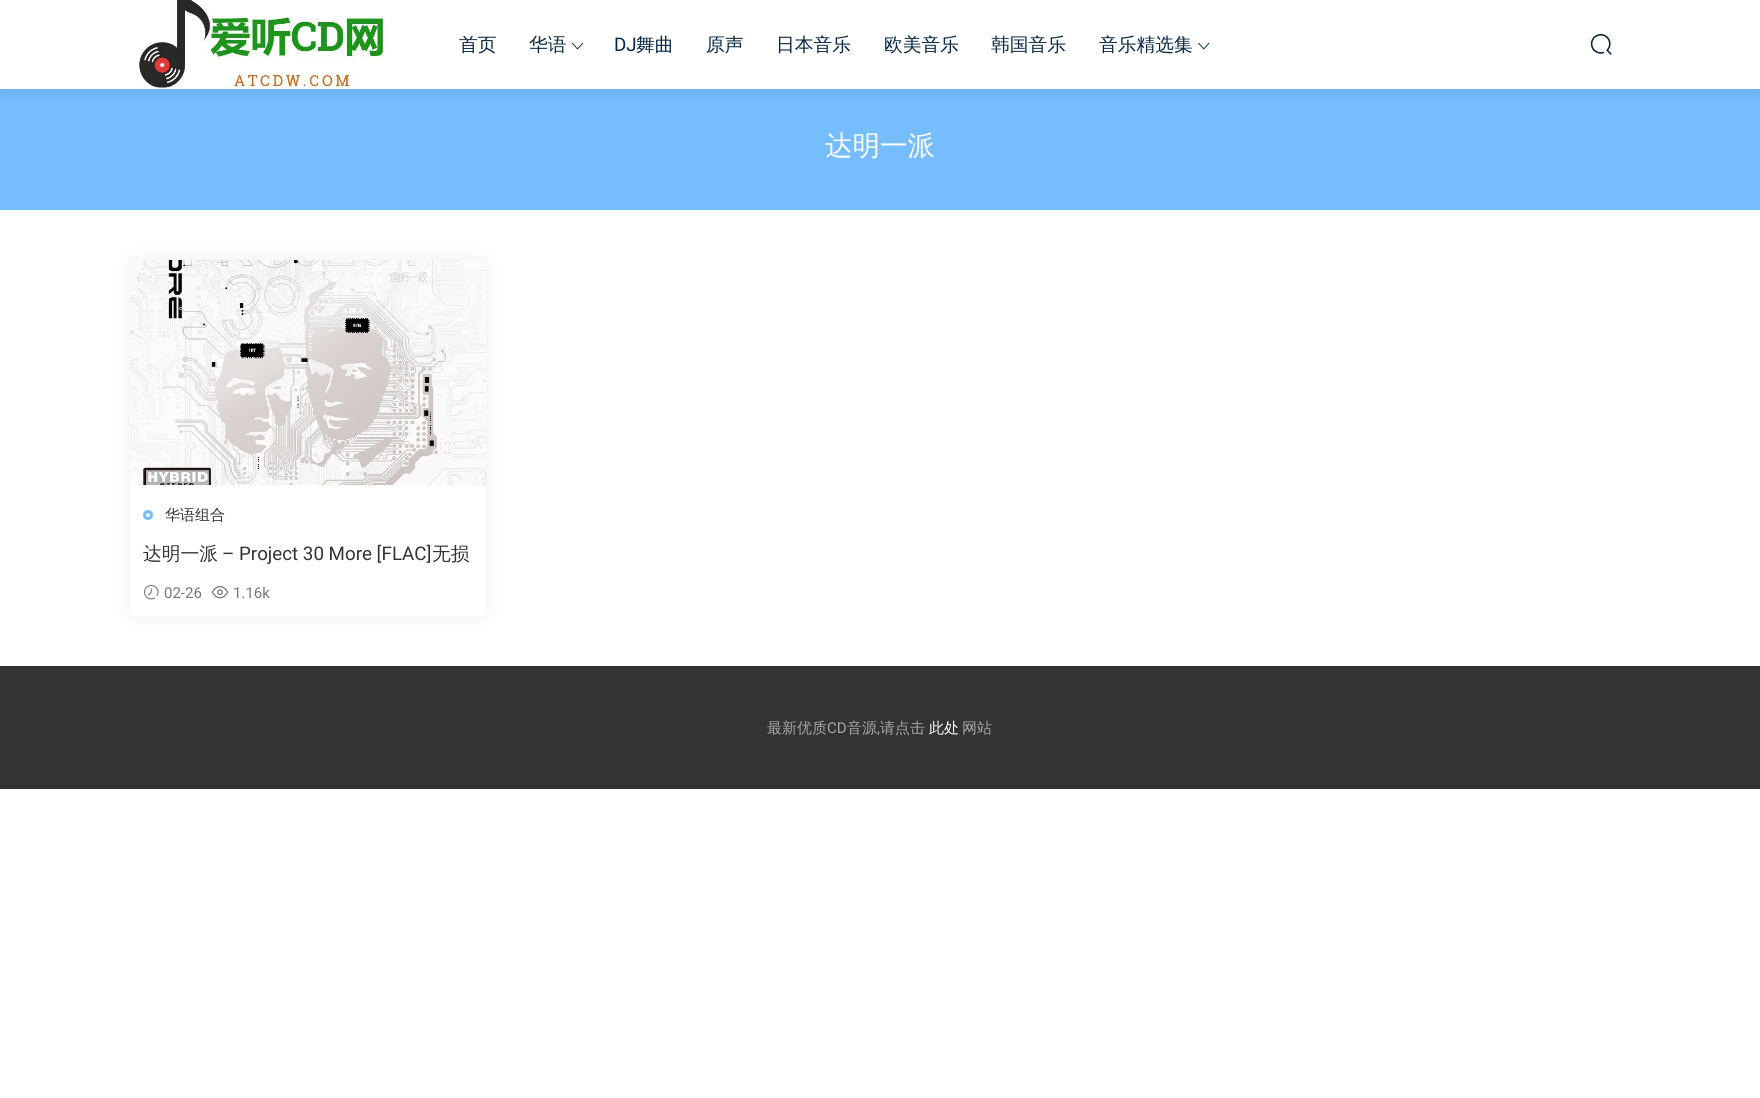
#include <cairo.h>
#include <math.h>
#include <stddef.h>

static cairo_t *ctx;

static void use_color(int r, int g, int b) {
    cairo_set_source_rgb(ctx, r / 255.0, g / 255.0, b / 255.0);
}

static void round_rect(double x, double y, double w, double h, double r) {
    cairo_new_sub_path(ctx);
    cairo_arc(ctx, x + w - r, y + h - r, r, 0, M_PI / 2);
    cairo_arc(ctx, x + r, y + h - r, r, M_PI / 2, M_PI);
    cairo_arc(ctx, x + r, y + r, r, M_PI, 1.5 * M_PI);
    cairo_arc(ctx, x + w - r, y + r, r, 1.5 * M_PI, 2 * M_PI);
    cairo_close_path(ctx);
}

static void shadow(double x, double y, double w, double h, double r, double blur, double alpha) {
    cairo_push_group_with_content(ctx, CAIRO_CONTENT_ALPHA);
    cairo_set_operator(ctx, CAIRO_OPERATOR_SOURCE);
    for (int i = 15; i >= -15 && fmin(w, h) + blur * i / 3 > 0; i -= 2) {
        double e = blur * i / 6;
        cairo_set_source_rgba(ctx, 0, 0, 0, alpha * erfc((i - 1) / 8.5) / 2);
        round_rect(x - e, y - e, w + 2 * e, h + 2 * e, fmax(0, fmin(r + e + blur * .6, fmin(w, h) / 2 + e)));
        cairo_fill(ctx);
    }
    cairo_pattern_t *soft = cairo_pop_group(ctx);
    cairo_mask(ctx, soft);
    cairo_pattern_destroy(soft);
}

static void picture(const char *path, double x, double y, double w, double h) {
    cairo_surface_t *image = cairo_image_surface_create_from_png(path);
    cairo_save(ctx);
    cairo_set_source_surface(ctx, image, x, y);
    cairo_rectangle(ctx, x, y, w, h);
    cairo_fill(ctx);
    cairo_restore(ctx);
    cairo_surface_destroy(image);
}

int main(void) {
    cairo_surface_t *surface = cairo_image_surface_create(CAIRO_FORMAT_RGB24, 1760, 1098);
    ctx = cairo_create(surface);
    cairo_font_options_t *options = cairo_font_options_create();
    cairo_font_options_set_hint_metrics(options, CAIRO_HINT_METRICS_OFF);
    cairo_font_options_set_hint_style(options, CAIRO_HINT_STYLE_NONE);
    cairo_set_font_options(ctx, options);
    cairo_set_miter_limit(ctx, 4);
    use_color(255, 255, 255);
    cairo_paint(ctx);
    use_color(118, 189, 255);
    cairo_rectangle(ctx, 0, 89, 1760, 121);
    cairo_fill(ctx);
    use_color(17, 58, 93);
    shadow(0, 5, 1760, 89, 0, 6, 0.1);
    use_color(255, 255, 255);
    cairo_rectangle(ctx, 0, 0, 1760, 89);
    cairo_fill(ctx);
    picture("img1.png", 138, 0, 250, 88);
    cairo_select_font_face(ctx, "WenQuanYi Zen Hei Medium", CAIRO_FONT_SLANT_NORMAL, CAIRO_FONT_WEIGHT_NORMAL);
    cairo_set_font_size(ctx, 18.75);
    use_color(6, 39, 67);
    cairo_move_to(ctx, 459, 51);
    cairo_show_text(ctx, "首页");
    cairo_move_to(ctx, 529, 51);
    cairo_show_text(ctx, "华语");
    picture("img2.png", 571, 42, 13, 8);
    cairo_select_font_face(ctx, "Roboto", CAIRO_FONT_SLANT_NORMAL, CAIRO_FONT_WEIGHT_NORMAL);
    cairo_move_to(ctx, 614, 51);
    cairo_show_text(ctx, "DJ");
    cairo_select_font_face(ctx, "WenQuanYi Zen Hei Medium", CAIRO_FONT_SLANT_NORMAL, CAIRO_FONT_WEIGHT_NORMAL);
    cairo_move_to(ctx, 636, 51);
    cairo_show_text(ctx, "舞曲");
    cairo_move_to(ctx, 706, 51);
    cairo_show_text(ctx, "原声");
    cairo_move_to(ctx, 776, 51);
    cairo_show_text(ctx, "日本音乐");
    cairo_move_to(ctx, 884, 51);
    cairo_show_text(ctx, "欧美音乐");
    cairo_move_to(ctx, 991, 51);
    cairo_show_text(ctx, "韩国音乐");
    cairo_move_to(ctx, 1099, 51);
    cairo_show_text(ctx, "音乐精选集");
    picture("img3.png", 1198, 42, 12, 8);
    picture("img4.png", 1590, 33, 22, 22);
    cairo_set_font_size(ctx, 27.5);
    use_color(255, 255, 255);
    cairo_move_to(ctx, 825, 155);
    cairo_show_text(ctx, "达明一派");
    use_color(0, 0, 0);
    shadow(130, 260, 356, 356, 6, 9.5, 0.07);
    use_color(255, 255, 255);
    round_rect(130, 260, 356, 356, 6);
    cairo_fill(ctx);
    picture("img5.png", 130, 260, 356, 225);
    cairo_arc(ctx, 148, 515, 3.5, 0, 2 * M_PI);
    use_color(118, 189, 255);
    cairo_set_line_width(ctx, 3);
    cairo_stroke(ctx);
    cairo_set_font_size(ctx, 15);
    use_color(51, 51, 51);
    cairo_move_to(ctx, 165, 520);
    cairo_show_text(ctx, "华语组合");
    cairo_set_font_size(ctx, 18.75);
    cairo_move_to(ctx, 143, 560);
    cairo_show_text(ctx, "达明一派");
    cairo_select_font_face(ctx, "Roboto", CAIRO_FONT_SLANT_NORMAL, CAIRO_FONT_WEIGHT_NORMAL);
    cairo_move_to(ctx, 222, 560);
    cairo_show_text(ctx, "– Project 30 More [FLAC]");
    cairo_select_font_face(ctx, "WenQuanYi Zen Hei Medium", CAIRO_FONT_SLANT_NORMAL, CAIRO_FONT_WEIGHT_NORMAL);
    cairo_move_to(ctx, 432, 560);
    cairo_show_text(ctx, "无损");
    picture("img6.png", 144, 584, 15, 16);
    cairo_select_font_face(ctx, "Roboto", CAIRO_FONT_SLANT_NORMAL, CAIRO_FONT_WEIGHT_NORMAL);
    cairo_set_font_size(ctx, 15);
    use_color(119, 119, 119);
    cairo_move_to(ctx, 164, 598);
    cairo_show_text(ctx, "02-26");
    picture("img7.png", 211, 586, 18, 13);
    cairo_move_to(ctx, 233, 598);
    cairo_show_text(ctx, "1.16k");
    use_color(51, 51, 51);
    cairo_rectangle(ctx, 0, 666, 1760, 123);
    cairo_fill(ctx);
    cairo_select_font_face(ctx, "WenQuanYi Zen Hei Medium", CAIRO_FONT_SLANT_NORMAL, CAIRO_FONT_WEIGHT_NORMAL);
    use_color(167, 167, 167);
    cairo_move_to(ctx, 767, 733);
    cairo_show_text(ctx, "最新优质");
    cairo_select_font_face(ctx, "Roboto", CAIRO_FONT_SLANT_NORMAL, CAIRO_FONT_WEIGHT_NORMAL);
    cairo_move_to(ctx, 827, 733);
    cairo_show_text(ctx, "CD");
    cairo_select_font_face(ctx, "WenQuanYi Zen Hei Medium", CAIRO_FONT_SLANT_NORMAL, CAIRO_FONT_WEIGHT_NORMAL);
    cairo_move_to(ctx, 847, 733);
    cairo_show_text(ctx, "音源");
    cairo_select_font_face(ctx, "Roboto", CAIRO_FONT_SLANT_NORMAL, CAIRO_FONT_WEIGHT_NORMAL);
    cairo_move_to(ctx, 877, 733);
    cairo_show_text(ctx, ",");
    cairo_select_font_face(ctx, "WenQuanYi Zen Hei Medium", CAIRO_FONT_SLANT_NORMAL, CAIRO_FONT_WEIGHT_NORMAL);
    cairo_move_to(ctx, 880, 733);
    cairo_show_text(ctx, "请点击");
    use_color(255, 255, 255);
    cairo_move_to(ctx, 929, 733);
    cairo_show_text(ctx, "此处");
    use_color(167, 167, 167);
    cairo_move_to(ctx, 962, 733);
    cairo_show_text(ctx, "网站");
    cairo_surface_write_to_png(surface, "result.png");
    cairo_font_options_destroy(options);
    cairo_destroy(ctx);
    cairo_surface_destroy(surface);
    return 0;
}
